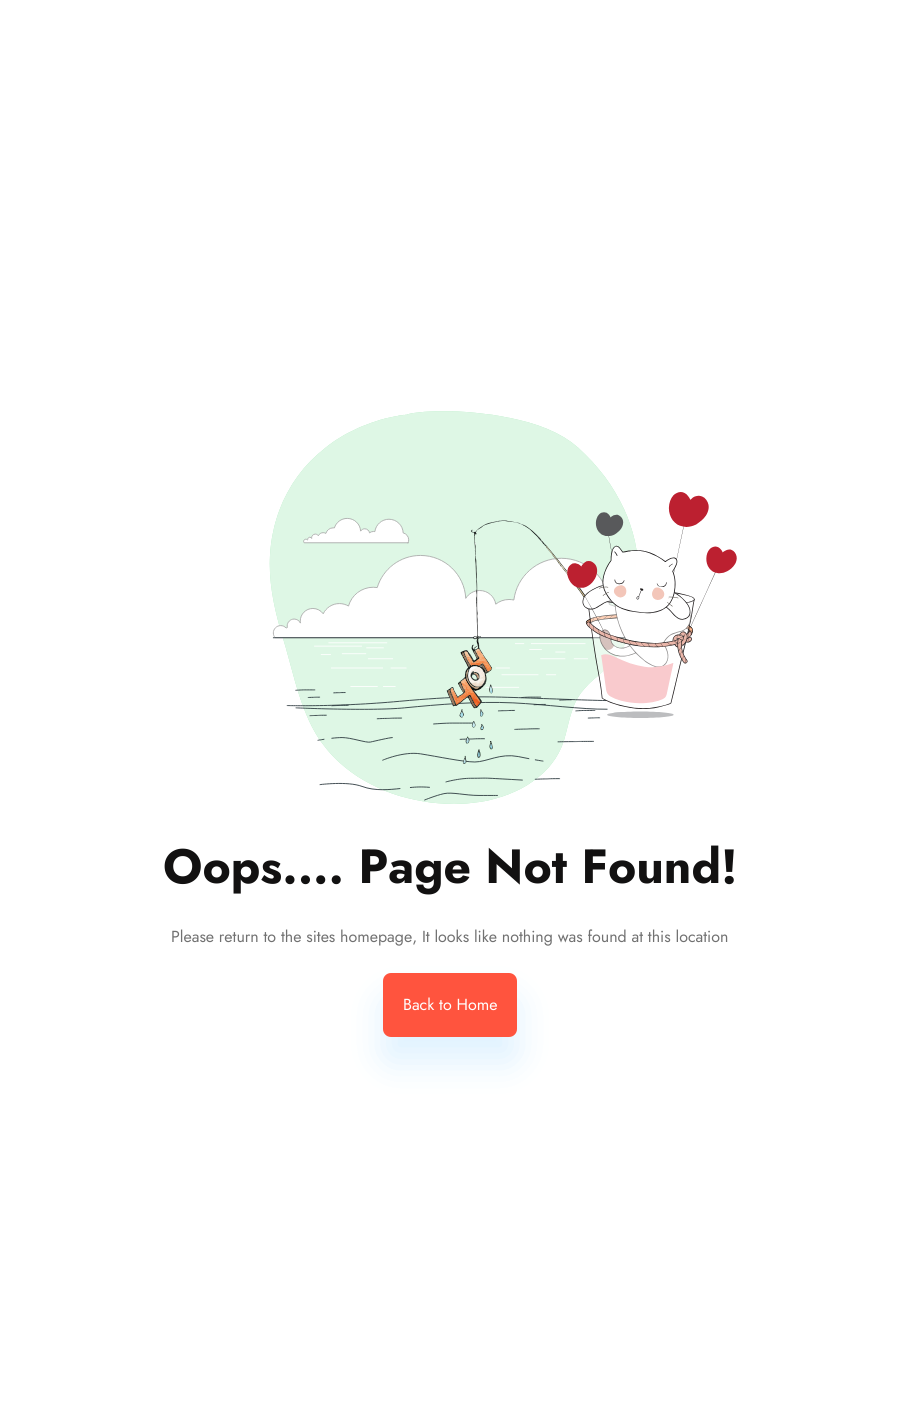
#include <cairo.h>
#include <math.h>
#include <stddef.h>

static cairo_t *ctx;

static void use_color(int r, int g, int b) {
    cairo_set_source_rgb(ctx, r / 255.0, g / 255.0, b / 255.0);
}

static void round_rect(double x, double y, double w, double h, double r) {
    cairo_new_sub_path(ctx);
    cairo_arc(ctx, x + w - r, y + h - r, r, 0, M_PI / 2);
    cairo_arc(ctx, x + r, y + h - r, r, M_PI / 2, M_PI);
    cairo_arc(ctx, x + r, y + r, r, M_PI, 1.5 * M_PI);
    cairo_arc(ctx, x + w - r, y + r, r, 1.5 * M_PI, 2 * M_PI);
    cairo_close_path(ctx);
}

static void shadow(double x, double y, double w, double h, double r, double blur, double alpha) {
    cairo_push_group_with_content(ctx, CAIRO_CONTENT_ALPHA);
    cairo_set_operator(ctx, CAIRO_OPERATOR_SOURCE);
    for (int i = 15; i >= -15 && fmin(w, h) + blur * i / 3 > 0; i -= 2) {
        double e = blur * i / 6;
        cairo_set_source_rgba(ctx, 0, 0, 0, alpha * erfc((i - 1) / 8.5) / 2);
        round_rect(x - e, y - e, w + 2 * e, h + 2 * e, fmax(0, fmin(r + e + blur * .6, fmin(w, h) / 2 + e)));
        cairo_fill(ctx);
    }
    cairo_pattern_t *soft = cairo_pop_group(ctx);
    cairo_mask(ctx, soft);
    cairo_pattern_destroy(soft);
}

static void picture(const char *path, double x, double y, double w, double h) {
    cairo_surface_t *image = cairo_image_surface_create_from_png(path);
    cairo_save(ctx);
    cairo_set_source_surface(ctx, image, x, y);
    cairo_rectangle(ctx, x, y, w, h);
    cairo_fill(ctx);
    cairo_restore(ctx);
    cairo_surface_destroy(image);
}

int main(void) {
    cairo_surface_t *surface = cairo_image_surface_create(CAIRO_FORMAT_RGB24, 900, 1420);
    ctx = cairo_create(surface);
    cairo_font_options_t *options = cairo_font_options_create();
    cairo_font_options_set_hint_metrics(options, CAIRO_HINT_METRICS_OFF);
    cairo_font_options_set_hint_style(options, CAIRO_HINT_STYLE_NONE);
    cairo_set_font_options(ctx, options);
    cairo_set_miter_limit(ctx, 4);
    use_color(255, 255, 255);
    cairo_paint(ctx);
    picture("img1.png", 269, 411, 468, 393);
    cairo_select_font_face(ctx, "Jost", CAIRO_FONT_SLANT_NORMAL, CAIRO_FONT_WEIGHT_BOLD);
    cairo_set_font_size(ctx, 48);
    use_color(18, 17, 17);
    cairo_move_to(ctx, 163, 883);
    cairo_show_text(ctx, "Oops.... Page Not Found!");
    cairo_select_font_face(ctx, "Jost", CAIRO_FONT_SLANT_NORMAL, CAIRO_FONT_WEIGHT_NORMAL);
    cairo_set_font_size(ctx, 16);
    use_color(113, 113, 113);
    cairo_move_to(ctx, 171, 942);
    cairo_show_text(ctx, "Please return to the sites homepage, It looks like nothing was found at this location");
    use_color(42, 167, 255);
    shadow(383, 998, 134, 64, 8, 17.5, 0.15);
    use_color(255, 84, 62);
    round_rect(383, 973, 134, 64, 8);
    cairo_fill(ctx);
    use_color(255, 255, 255);
    cairo_move_to(ctx, 403, 1010);
    cairo_show_text(ctx, "Back to Home");
    cairo_surface_write_to_png(surface, "result.png");
    cairo_font_options_destroy(options);
    cairo_destroy(ctx);
    cairo_surface_destroy(surface);
    return 0;
}
